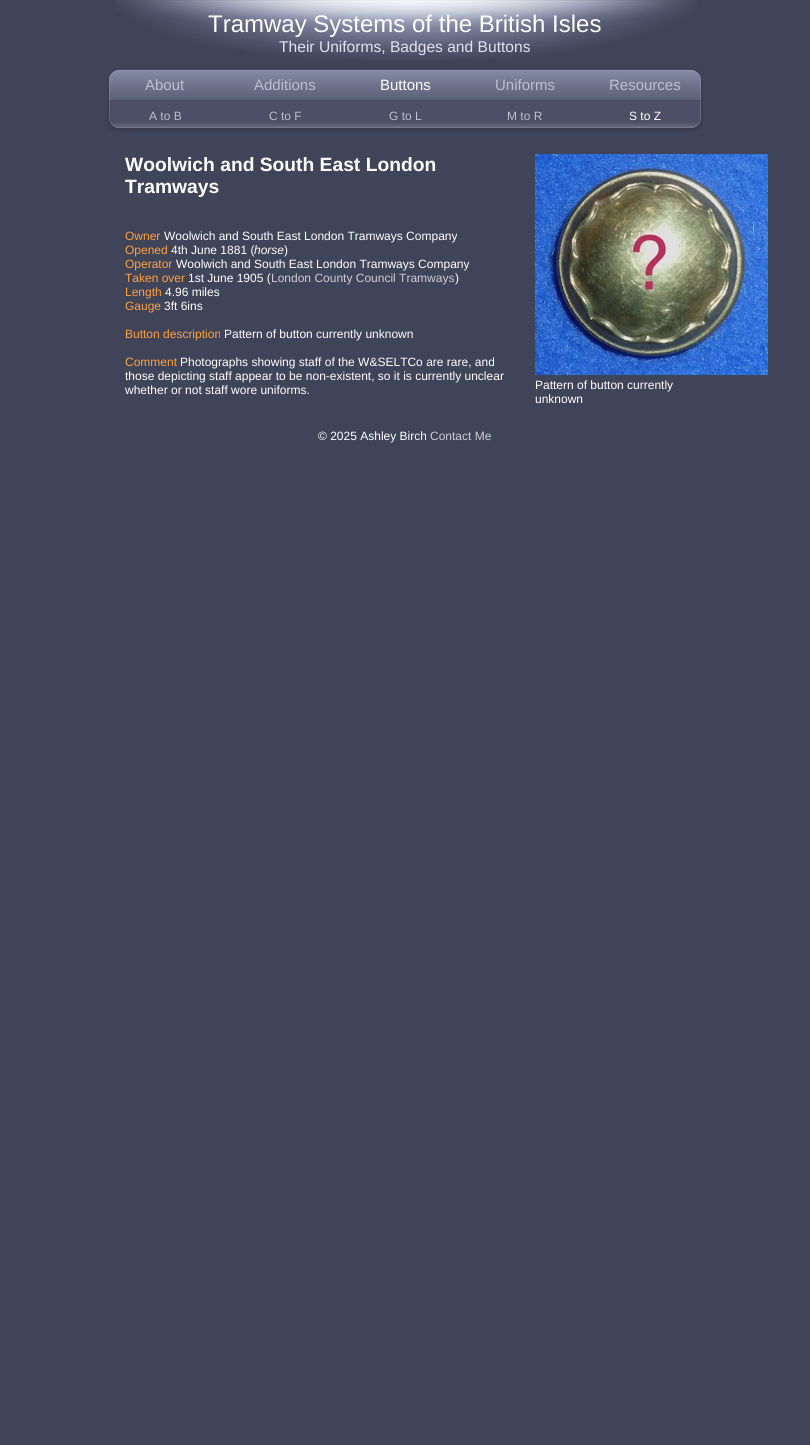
#include <cairo.h>
#include <math.h>
#include <stddef.h>

static cairo_t *ctx;

static void use_color(int r, int g, int b) {
    cairo_set_source_rgb(ctx, r / 255.0, g / 255.0, b / 255.0);
}

static void picture(const char *path, double x, double y, double w, double h) {
    cairo_surface_t *image = cairo_image_surface_create_from_png(path);
    cairo_save(ctx);
    cairo_set_source_surface(ctx, image, x, y);
    cairo_rectangle(ctx, x, y, w, h);
    cairo_fill(ctx);
    cairo_restore(ctx);
    cairo_surface_destroy(image);
}

int main(void) {
    cairo_surface_t *surface = cairo_image_surface_create(CAIRO_FORMAT_RGB24, 810, 1445);
    ctx = cairo_create(surface);
    cairo_font_options_t *options = cairo_font_options_create();
    cairo_font_options_set_hint_metrics(options, CAIRO_HINT_METRICS_OFF);
    cairo_font_options_set_hint_style(options, CAIRO_HINT_STYLE_NONE);
    cairo_set_font_options(ctx, options);
    cairo_set_miter_limit(ctx, 4);
    use_color(64, 68, 89);
    cairo_paint(ctx);
    picture("img1.png", 116, 0, 581, 60);
    cairo_select_font_face(ctx, "Liberation Sans", CAIRO_FONT_SLANT_NORMAL, CAIRO_FONT_WEIGHT_NORMAL);
    cairo_set_font_size(ctx, 24);
    use_color(255, 255, 255);
    cairo_move_to(ctx, 208, 32);
    cairo_show_text(ctx, "Tramway Systems of the British Isles");
    cairo_set_font_size(ctx, 15.6);
    use_color(223, 226, 241);
    cairo_move_to(ctx, 279, 52);
    cairo_show_text(ctx, "Their Uniforms, Badges and Buttons");
    picture("img2.png", 107, 70, 596, 62);
    cairo_set_font_size(ctx, 15);
    use_color(188, 191, 206);
    cairo_move_to(ctx, 145, 90);
    cairo_show_text(ctx, "About");
    use_color(255, 255, 255);
    cairo_move_to(ctx, 380, 90);
    cairo_show_text(ctx, "Buttons");
    cairo_set_font_size(ctx, 12);
    use_color(188, 191, 206);
    cairo_move_to(ctx, 149, 120);
    cairo_show_text(ctx, "A to B");
    cairo_move_to(ctx, 269, 120);
    cairo_show_text(ctx, "C to F");
    cairo_move_to(ctx, 389, 120);
    cairo_show_text(ctx, "G to L");
    cairo_move_to(ctx, 507, 120);
    cairo_show_text(ctx, "M to R");
    use_color(255, 255, 255);
    cairo_move_to(ctx, 629, 120);
    cairo_show_text(ctx, "S to Z");
    cairo_set_font_size(ctx, 15);
    use_color(188, 191, 206);
    cairo_move_to(ctx, 254, 90);
    cairo_show_text(ctx, "Additions");
    cairo_move_to(ctx, 495, 90);
    cairo_show_text(ctx, "Uniforms");
    cairo_move_to(ctx, 609, 90);
    cairo_show_text(ctx, "Resources");
    cairo_select_font_face(ctx, "Liberation Sans", CAIRO_FONT_SLANT_NORMAL, CAIRO_FONT_WEIGHT_BOLD);
    cairo_set_font_size(ctx, 19.25);
    use_color(255, 255, 255);
    cairo_move_to(ctx, 125, 171);
    cairo_show_text(ctx, "Woolwich and South East London");
    cairo_move_to(ctx, 125, 193);
    cairo_show_text(ctx, "Tramways");
    cairo_select_font_face(ctx, "Liberation Sans", CAIRO_FONT_SLANT_NORMAL, CAIRO_FONT_WEIGHT_NORMAL);
    cairo_set_font_size(ctx, 12);
    use_color(255, 159, 62);
    cairo_move_to(ctx, 125, 240);
    cairo_show_text(ctx, "Owner");
    use_color(255, 255, 255);
    cairo_move_to(ctx, 164, 240);
    cairo_show_text(ctx, "Woolwich and South East London Tramways Company");
    use_color(255, 159, 62);
    cairo_move_to(ctx, 125, 254);
    cairo_show_text(ctx, "Opened");
    use_color(255, 255, 255);
    cairo_move_to(ctx, 171, 254);
    cairo_show_text(ctx, "4th June 1881 (");
    cairo_select_font_face(ctx, "Liberation Sans", CAIRO_FONT_SLANT_ITALIC, CAIRO_FONT_WEIGHT_NORMAL);
    cairo_move_to(ctx, 254, 254);
    cairo_show_text(ctx, "horse");
    cairo_select_font_face(ctx, "Liberation Sans", CAIRO_FONT_SLANT_NORMAL, CAIRO_FONT_WEIGHT_NORMAL);
    cairo_move_to(ctx, 284, 254);
    cairo_show_text(ctx, ")");
    use_color(255, 159, 62);
    cairo_move_to(ctx, 125, 268);
    cairo_show_text(ctx, "Operator");
    use_color(255, 255, 255);
    cairo_move_to(ctx, 176, 268);
    cairo_show_text(ctx, "Woolwich and South East London Tramways Company");
    use_color(255, 159, 62);
    cairo_move_to(ctx, 125, 282);
    cairo_show_text(ctx, "Taken over");
    use_color(255, 255, 255);
    cairo_move_to(ctx, 188, 282);
    cairo_show_text(ctx, "1st June 1905 (");
    use_color(206, 205, 211);
    cairo_move_to(ctx, 271, 282);
    cairo_show_text(ctx, "London County Council Tramways");
    use_color(255, 255, 255);
    cairo_move_to(ctx, 455, 282);
    cairo_show_text(ctx, ")");
    use_color(255, 159, 62);
    cairo_move_to(ctx, 125, 296);
    cairo_show_text(ctx, "Length");
    use_color(255, 255, 255);
    cairo_move_to(ctx, 165, 296);
    cairo_show_text(ctx, "4.96 miles");
    use_color(255, 159, 62);
    cairo_move_to(ctx, 125, 310);
    cairo_show_text(ctx, "Gauge");
    use_color(255, 255, 255);
    cairo_move_to(ctx, 164, 310);
    cairo_show_text(ctx, "3ft 6ins");
    use_color(255, 159, 62);
    cairo_move_to(ctx, 125, 338);
    cairo_show_text(ctx, "Button description");
    use_color(255, 255, 255);
    cairo_move_to(ctx, 224, 338);
    cairo_show_text(ctx, "Pattern of button currently unknown");
    use_color(255, 159, 62);
    cairo_move_to(ctx, 125, 366);
    cairo_show_text(ctx, "Comment");
    use_color(255, 255, 255);
    cairo_move_to(ctx, 180, 366);
    cairo_show_text(ctx, "Photographs showing staff of the W&SELTCo are rare, and");
    cairo_move_to(ctx, 125, 380);
    cairo_show_text(ctx, "those depicting staff appear to be non-existent, so it is currently unclear");
    cairo_move_to(ctx, 125, 394);
    cairo_show_text(ctx, "whether or not staff wore uniforms.");
    picture("img3.png", 535, 154, 233, 221);
    cairo_move_to(ctx, 535, 389);
    cairo_show_text(ctx, "Pattern of button currently");
    cairo_move_to(ctx, 535, 403);
    cairo_show_text(ctx, "unknown");
    cairo_move_to(ctx, 318, 440);
    cairo_show_text(ctx, "© 2025 Ashley Birch");
    use_color(206, 205, 211);
    cairo_move_to(ctx, 430, 440);
    cairo_show_text(ctx, "Contact Me");
    cairo_surface_write_to_png(surface, "result.png");
    cairo_font_options_destroy(options);
    cairo_destroy(ctx);
    cairo_surface_destroy(surface);
    return 0;
}
